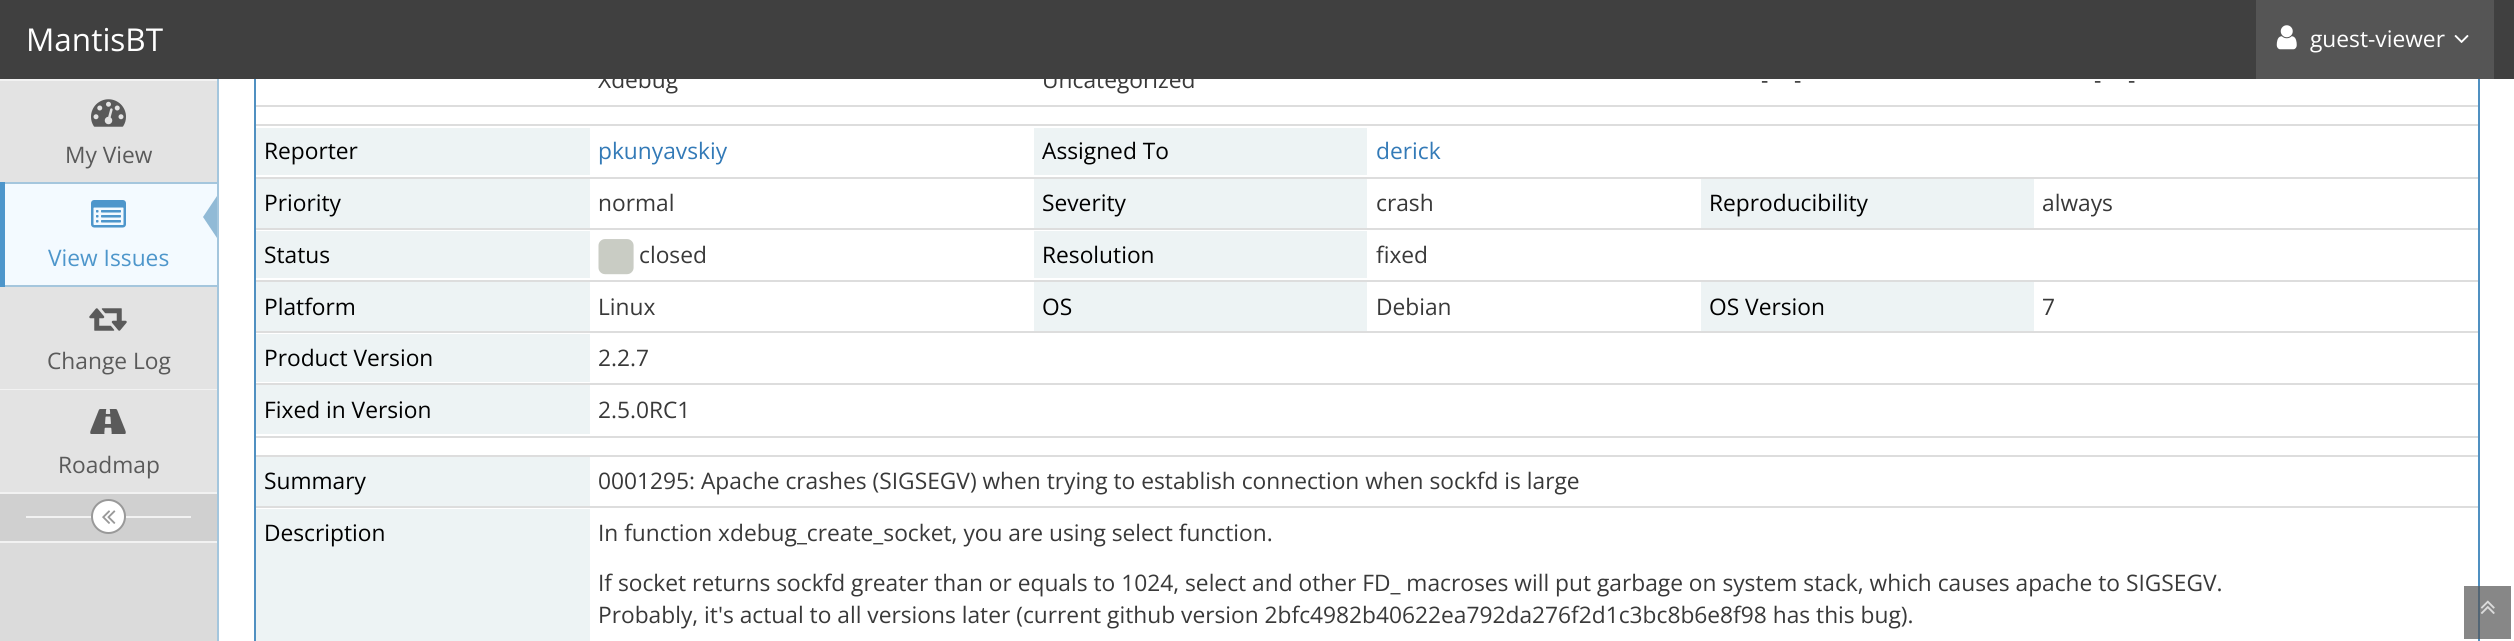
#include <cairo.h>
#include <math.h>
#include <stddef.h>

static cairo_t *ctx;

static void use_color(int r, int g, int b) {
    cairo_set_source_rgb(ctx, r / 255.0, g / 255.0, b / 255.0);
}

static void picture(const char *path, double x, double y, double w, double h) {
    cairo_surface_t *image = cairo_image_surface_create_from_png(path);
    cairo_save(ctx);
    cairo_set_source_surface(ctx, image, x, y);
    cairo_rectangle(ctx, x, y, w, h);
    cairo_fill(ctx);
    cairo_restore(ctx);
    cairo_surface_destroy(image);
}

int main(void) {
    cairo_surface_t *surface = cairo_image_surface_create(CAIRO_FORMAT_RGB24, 2514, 641);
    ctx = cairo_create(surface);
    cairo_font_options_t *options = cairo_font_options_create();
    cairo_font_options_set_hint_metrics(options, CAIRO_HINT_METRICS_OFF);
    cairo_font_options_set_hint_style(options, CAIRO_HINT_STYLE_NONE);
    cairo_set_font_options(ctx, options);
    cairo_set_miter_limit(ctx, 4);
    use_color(255, 255, 255);
    cairo_paint(ctx);
    cairo_rectangle(ctx, 255, -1, 2224, 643);
    use_color(80, 144, 193);
    cairo_stroke(ctx);
    cairo_select_font_face(ctx, "Open Sans", CAIRO_FONT_SLANT_NORMAL, CAIRO_FONT_WEIGHT_NORMAL);
    cairo_set_font_size(ctx, 22.75);
    use_color(57, 57, 57);
    cairo_move_to(ctx, 598, 88);
    cairo_show_text(ctx, "Xdebug");
    cairo_move_to(ctx, 1042, 88);
    cairo_show_text(ctx, "Uncategorized");
    use_color(64, 64, 64);
    cairo_rectangle(ctx, 0, 0, 2514, 79);
    cairo_fill(ctx);
    cairo_set_font_size(ctx, 31.5);
    use_color(255, 255, 255);
    cairo_move_to(ctx, 26, 51);
    cairo_show_text(ctx, "MantisBT");
    use_color(85, 85, 85);
    cairo_rectangle(ctx, 2256, 0, 238, 79);
    cairo_fill(ctx);
    picture("img1.png", 2276, 25, 21, 25);
    cairo_set_font_size(ctx, 22.75);
    use_color(255, 255, 255);
    cairo_move_to(ctx, 2310, 47);
    cairo_show_text(ctx, "guest-viewer");
    picture("img2.png", 2454, 35, 15, 8);
    use_color(219, 219, 219);
    cairo_rectangle(ctx, 0, 543, 217, 98);
    cairo_fill(ctx);
    use_color(164, 198, 221);
    cairo_rectangle(ctx, 217, 79, 2, 562);
    cairo_fill(ctx);
    use_color(242, 242, 242);
    cairo_rectangle(ctx, 0, 79, 217, 2);
    cairo_fill(ctx);
    use_color(227, 227, 227);
    cairo_rectangle(ctx, 0, 81, 217, 101);
    cairo_fill(ctx);
    picture("img3.png", 91, 99, 35, 28);
    use_color(90, 90, 90);
    cairo_move_to(ctx, 65, 163);
    cairo_show_text(ctx, "My View");
    use_color(164, 198, 221);
    cairo_rectangle(ctx, 0, 182, 217, 2);
    cairo_fill(ctx);
    cairo_rectangle(ctx, 0, 285, 217, 2);
    cairo_fill(ctx);
    use_color(77, 150, 203);
    cairo_rectangle(ctx, 0, 182, 5, 105);
    cairo_fill(ctx);
    use_color(243, 250, 255);
    cairo_rectangle(ctx, 5, 184, 212, 101);
    cairo_fill(ctx);
    picture("img4.png", 91, 200, 35, 28);
    use_color(145, 186, 214);
    cairo_new_path(ctx);
    cairo_move_to(ctx, 217, 196);
    cairo_line_to(ctx, 217, 238);
    cairo_line_to(ctx, 203, 217);
    cairo_close_path(ctx);
    cairo_fill(ctx);
    use_color(77, 150, 203);
    cairo_move_to(ctx, 48, 266);
    cairo_show_text(ctx, "View Issues");
    use_color(227, 227, 227);
    cairo_rectangle(ctx, 0, 287, 217, 102);
    cairo_fill(ctx);
    picture("img5.png", 89, 308, 38, 23);
    use_color(90, 90, 90);
    cairo_move_to(ctx, 47, 369);
    cairo_show_text(ctx, "Change Log");
    use_color(242, 242, 242);
    cairo_rectangle(ctx, 0, 389, 217, 1);
    cairo_fill(ctx);
    cairo_rectangle(ctx, 0, 492, 217, 2);
    cairo_fill(ctx);
    use_color(227, 227, 227);
    cairo_rectangle(ctx, 0, 390, 217, 102);
    cairo_fill(ctx);
    picture("img6.png", 90, 409, 36, 25);
    use_color(90, 90, 90);
    cairo_move_to(ctx, 58, 473);
    cairo_show_text(ctx, "Roadmap");
    use_color(208, 208, 208);
    cairo_rectangle(ctx, 0, 494, 217, 47);
    cairo_fill(ctx);
    use_color(242, 242, 242);
    cairo_rectangle(ctx, 0, 541, 217, 2);
    cairo_fill(ctx);
    cairo_rectangle(ctx, 26, 516, 165, 2);
    cairo_fill(ctx);
    use_color(255, 255, 255);
    cairo_arc(ctx, 108.5, 516.5, 16.5, 0, 2 * M_PI);
    cairo_fill_preserve(ctx);
    use_color(153, 153, 153);
    cairo_stroke(ctx);
    picture("img7.png", 102, 510, 14, 14);
    use_color(57, 57, 57);
    cairo_move_to(ctx, 1761, 88);
    cairo_show_text(ctx, "-");
    cairo_move_to(ctx, 1794, 88);
    cairo_show_text(ctx, "-");
    cairo_move_to(ctx, 2094, 88);
    cairo_show_text(ctx, "-");
    cairo_move_to(ctx, 2128, 88);
    cairo_show_text(ctx, "-");
    use_color(221, 221, 221);
    cairo_rectangle(ctx, 256, 105, 2222, 2);
    cairo_fill(ctx);
    cairo_rectangle(ctx, 256, 124, 2222, 2);
    cairo_fill(ctx);
    use_color(237, 243, 244);
    cairo_rectangle(ctx, 256, 128, 334, 47);
    cairo_fill(ctx);
    use_color(0, 0, 0);
    cairo_move_to(ctx, 264, 159);
    cairo_show_text(ctx, "Reporter");
    use_color(51, 122, 183);
    cairo_move_to(ctx, 598, 159);
    cairo_show_text(ctx, "pkunyavskiy");
    use_color(237, 243, 244);
    cairo_rectangle(ctx, 1034, 128, 333, 47);
    cairo_fill(ctx);
    use_color(0, 0, 0);
    cairo_move_to(ctx, 1042, 159);
    cairo_show_text(ctx, "Assigned To");
    use_color(51, 122, 183);
    cairo_move_to(ctx, 1376, 159);
    cairo_show_text(ctx, "derick");
    use_color(237, 243, 244);
    cairo_rectangle(ctx, 256, 179, 334, 49);
    cairo_fill(ctx);
    use_color(0, 0, 0);
    cairo_move_to(ctx, 264, 211);
    cairo_show_text(ctx, "Priority");
    use_color(57, 57, 57);
    cairo_move_to(ctx, 598, 211);
    cairo_show_text(ctx, "normal");
    use_color(237, 243, 244);
    cairo_rectangle(ctx, 1034, 179, 333, 49);
    cairo_fill(ctx);
    use_color(0, 0, 0);
    cairo_move_to(ctx, 1042, 211);
    cairo_show_text(ctx, "Severity");
    use_color(57, 57, 57);
    cairo_move_to(ctx, 1376, 211);
    cairo_show_text(ctx, "crash");
    use_color(237, 243, 244);
    cairo_rectangle(ctx, 1701, 179, 333, 49);
    cairo_fill(ctx);
    use_color(0, 0, 0);
    cairo_move_to(ctx, 1709, 211);
    cairo_show_text(ctx, "Reproducibility");
    use_color(221, 221, 221);
    cairo_rectangle(ctx, 256, 177, 2222, 2);
    cairo_fill(ctx);
    use_color(57, 57, 57);
    cairo_move_to(ctx, 2042, 211);
    cairo_show_text(ctx, "always");
    use_color(221, 221, 221);
    cairo_rectangle(ctx, 256, 228, 2222, 2);
    cairo_fill(ctx);
    use_color(237, 243, 244);
    cairo_rectangle(ctx, 256, 231, 334, 47);
    cairo_fill(ctx);
    use_color(0, 0, 0);
    cairo_move_to(ctx, 264, 263);
    cairo_show_text(ctx, "Status");
    picture("img8.png", 598, 239, 36, 36);
    use_color(57, 57, 57);
    cairo_move_to(ctx, 639, 263);
    cairo_show_text(ctx, "closed");
    use_color(237, 243, 244);
    cairo_rectangle(ctx, 1034, 231, 333, 47);
    cairo_fill(ctx);
    use_color(0, 0, 0);
    cairo_move_to(ctx, 1042, 263);
    cairo_show_text(ctx, "Resolution");
    use_color(57, 57, 57);
    cairo_move_to(ctx, 1376, 263);
    cairo_show_text(ctx, "fixed");
    use_color(237, 243, 244);
    cairo_rectangle(ctx, 256, 282, 334, 49);
    cairo_fill(ctx);
    use_color(0, 0, 0);
    cairo_move_to(ctx, 264, 315);
    cairo_show_text(ctx, "Platform");
    use_color(57, 57, 57);
    cairo_move_to(ctx, 598, 315);
    cairo_show_text(ctx, "Linux");
    use_color(237, 243, 244);
    cairo_rectangle(ctx, 1034, 282, 333, 49);
    cairo_fill(ctx);
    use_color(0, 0, 0);
    cairo_move_to(ctx, 1042, 315);
    cairo_show_text(ctx, "OS");
    use_color(57, 57, 57);
    cairo_move_to(ctx, 1376, 315);
    cairo_show_text(ctx, "Debian");
    use_color(237, 243, 244);
    cairo_rectangle(ctx, 1701, 282, 333, 49);
    cairo_fill(ctx);
    use_color(0, 0, 0);
    cairo_move_to(ctx, 1709, 315);
    cairo_show_text(ctx, "OS Version");
    use_color(221, 221, 221);
    cairo_rectangle(ctx, 256, 280, 2222, 2);
    cairo_fill(ctx);
    use_color(57, 57, 57);
    cairo_move_to(ctx, 2042, 315);
    cairo_show_text(ctx, "7");
    use_color(221, 221, 221);
    cairo_rectangle(ctx, 256, 331, 2222, 2);
    cairo_fill(ctx);
    use_color(237, 243, 244);
    cairo_rectangle(ctx, 256, 334, 334, 48);
    cairo_fill(ctx);
    use_color(0, 0, 0);
    cairo_move_to(ctx, 264, 366);
    cairo_show_text(ctx, "Product Version");
    use_color(57, 57, 57);
    cairo_move_to(ctx, 598, 366);
    cairo_show_text(ctx, "2.2.7");
    use_color(221, 221, 221);
    cairo_rectangle(ctx, 256, 383, 2222, 2);
    cairo_fill(ctx);
    use_color(237, 243, 244);
    cairo_rectangle(ctx, 256, 385, 334, 49);
    cairo_fill(ctx);
    use_color(0, 0, 0);
    cairo_move_to(ctx, 264, 418);
    cairo_show_text(ctx, "Fixed in Version");
    use_color(57, 57, 57);
    cairo_move_to(ctx, 598, 418);
    cairo_show_text(ctx, "2.5.0RC1");
    use_color(221, 221, 221);
    cairo_rectangle(ctx, 256, 436, 2222, 2);
    cairo_fill(ctx);
    use_color(237, 243, 244);
    cairo_rectangle(ctx, 256, 457, 334, 49);
    cairo_fill(ctx);
    use_color(0, 0, 0);
    cairo_move_to(ctx, 264, 489);
    cairo_show_text(ctx, "Summary");
    use_color(221, 221, 221);
    cairo_rectangle(ctx, 256, 455, 2222, 2);
    cairo_fill(ctx);
    use_color(57, 57, 57);
    cairo_move_to(ctx, 598, 489);
    cairo_show_text(ctx, "0001295: Apache crashes (SIGSEGV) when trying to establish connection when sockfd is large");
    use_color(237, 243, 244);
    cairo_rectangle(ctx, 256, 509, 334, 132);
    cairo_fill(ctx);
    use_color(0, 0, 0);
    cairo_move_to(ctx, 264, 541);
    cairo_show_text(ctx, "Description");
    use_color(221, 221, 221);
    cairo_rectangle(ctx, 256, 506, 2222, 2);
    cairo_fill(ctx);
    use_color(57, 57, 57);
    cairo_move_to(ctx, 598, 541);
    cairo_show_text(ctx, "In function xdebug_create_socket, you are using select function.");
    cairo_move_to(ctx, 598, 591);
    cairo_show_text(ctx, "If socket returns sockfd greater than or equals to 1024, select and other FD_ macroses will put garbage on system stack, which causes apache to SIGSEGV.");
    cairo_move_to(ctx, 598, 623);
    cairo_show_text(ctx, "Probably, it's actual to all versions later (current github version 2bfc4982b40622ea792da276f2d1c3bc8b6e8f98 has this bug).");
    cairo_set_source_rgba(ctx, 0.333, 0.333, 0.333, 0.7);
    cairo_rectangle(ctx, 2464, 586, 47, 53);
    cairo_fill(ctx);
    picture("img9.png", 2480, 600, 15, 14);
    cairo_surface_write_to_png(surface, "result.png");
    cairo_font_options_destroy(options);
    cairo_destroy(ctx);
    cairo_surface_destroy(surface);
    return 0;
}
